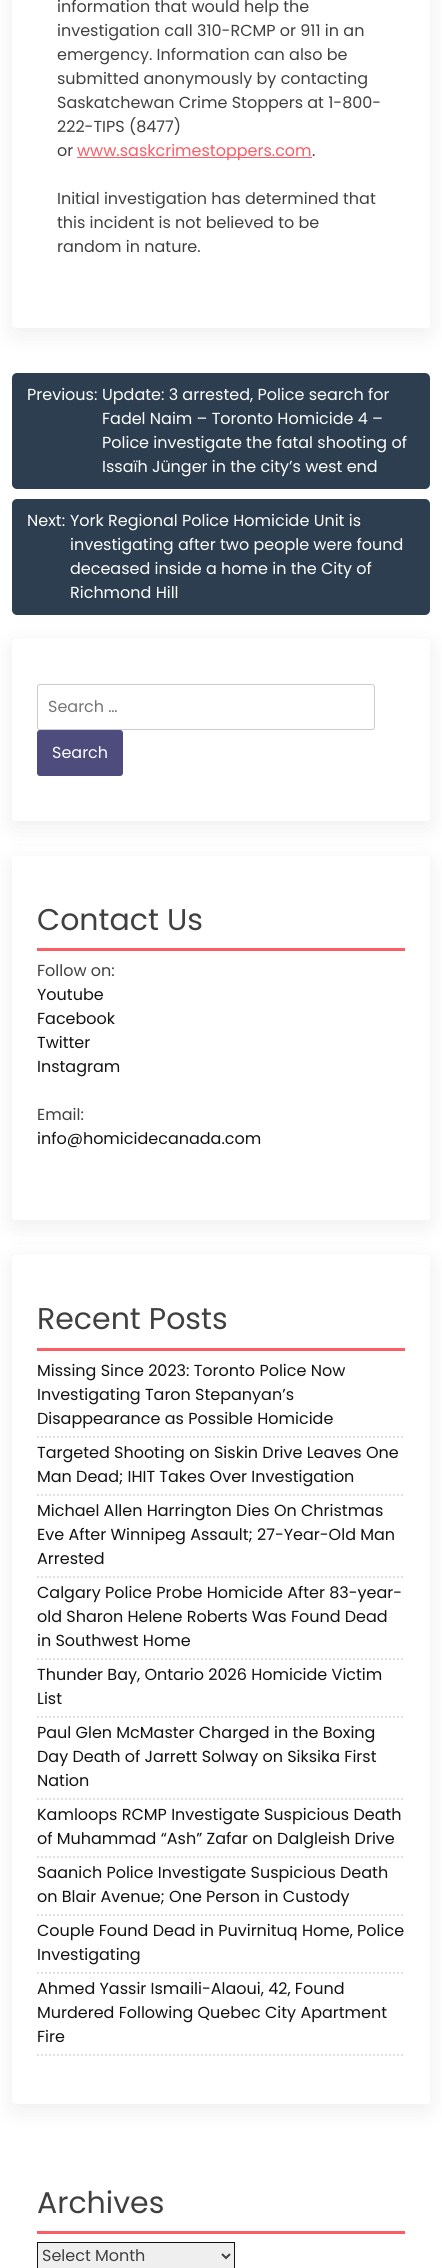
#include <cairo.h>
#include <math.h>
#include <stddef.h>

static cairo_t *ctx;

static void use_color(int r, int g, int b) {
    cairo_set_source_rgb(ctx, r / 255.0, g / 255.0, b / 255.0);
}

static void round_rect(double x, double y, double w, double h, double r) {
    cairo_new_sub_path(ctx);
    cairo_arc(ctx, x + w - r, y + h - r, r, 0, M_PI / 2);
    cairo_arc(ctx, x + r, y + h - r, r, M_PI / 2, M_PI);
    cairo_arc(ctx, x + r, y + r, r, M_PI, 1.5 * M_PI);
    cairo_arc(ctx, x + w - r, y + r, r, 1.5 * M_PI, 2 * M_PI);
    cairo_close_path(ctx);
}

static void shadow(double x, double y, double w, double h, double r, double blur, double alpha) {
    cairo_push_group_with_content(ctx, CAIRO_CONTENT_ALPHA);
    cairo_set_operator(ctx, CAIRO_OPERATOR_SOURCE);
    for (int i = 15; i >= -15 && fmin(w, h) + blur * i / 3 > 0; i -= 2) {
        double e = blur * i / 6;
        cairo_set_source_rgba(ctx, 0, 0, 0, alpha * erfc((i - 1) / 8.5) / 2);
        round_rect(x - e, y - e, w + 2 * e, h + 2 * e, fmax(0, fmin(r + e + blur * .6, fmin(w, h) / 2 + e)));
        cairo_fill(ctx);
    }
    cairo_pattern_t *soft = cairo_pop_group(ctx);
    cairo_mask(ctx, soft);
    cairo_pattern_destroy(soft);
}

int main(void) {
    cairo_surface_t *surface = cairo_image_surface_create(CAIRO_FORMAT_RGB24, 442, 2268);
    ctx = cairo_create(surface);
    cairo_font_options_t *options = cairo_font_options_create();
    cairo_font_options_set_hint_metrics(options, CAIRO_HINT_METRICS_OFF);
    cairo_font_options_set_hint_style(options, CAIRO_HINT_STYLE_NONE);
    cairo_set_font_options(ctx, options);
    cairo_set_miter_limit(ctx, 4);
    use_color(255, 255, 255);
    cairo_paint(ctx);
    use_color(0, 0, 0);
    shadow(12, -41, 418, 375, 3, 12.5, 0.07);
    use_color(255, 255, 255);
    round_rect(12, -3, 418, 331, 3);
    cairo_fill(ctx);
    cairo_select_font_face(ctx, "Poppins", CAIRO_FONT_SLANT_NORMAL, CAIRO_FONT_WEIGHT_NORMAL);
    cairo_set_font_size(ctx, 16);
    use_color(64, 64, 64);
    cairo_move_to(ctx, 57, 12);
    cairo_show_text(ctx, "information that would help the");
    cairo_move_to(ctx, 57, 36);
    cairo_show_text(ctx, "investigation call 310-RCMP or 911 in an");
    cairo_move_to(ctx, 57, 60);
    cairo_show_text(ctx, "emergency. Information can also be");
    cairo_move_to(ctx, 57, 84);
    cairo_show_text(ctx, "submitted anonymously by contacting");
    cairo_move_to(ctx, 57, 108);
    cairo_show_text(ctx, "Saskatchewan Crime Stoppers at 1-800-");
    cairo_move_to(ctx, 57, 132);
    cairo_show_text(ctx, "222-TIPS (8477)");
    cairo_move_to(ctx, 57, 156);
    cairo_show_text(ctx, "or");
    use_color(252, 92, 101);
    cairo_rectangle(ctx, 77, 157, 235, 1);
    cairo_fill(ctx);
    cairo_move_to(ctx, 77, 156);
    cairo_show_text(ctx, "www.saskcrimestoppers.com");
    use_color(64, 64, 64);
    cairo_move_to(ctx, 312, 156);
    cairo_show_text(ctx, ".");
    cairo_move_to(ctx, 57, 204);
    cairo_show_text(ctx, "Initial investigation has determined that");
    cairo_move_to(ctx, 57, 228);
    cairo_show_text(ctx, "this incident is not believed to be");
    cairo_move_to(ctx, 57, 252);
    cairo_show_text(ctx, "random in nature.");
    use_color(44, 62, 80);
    round_rect(12, 373, 418, 116, 5);
    cairo_fill(ctx);
    use_color(255, 255, 255);
    cairo_move_to(ctx, 27, 400);
    cairo_show_text(ctx, "Previous:");
    cairo_move_to(ctx, 102, 400);
    cairo_show_text(ctx, "Update: 3 arrested, Police search for");
    cairo_move_to(ctx, 102, 424);
    cairo_show_text(ctx, "Fadel Naim – Toronto Homicide 4 –");
    cairo_move_to(ctx, 102, 448);
    cairo_show_text(ctx, "Police investigate the fatal shooting of");
    cairo_move_to(ctx, 102, 472);
    cairo_show_text(ctx, "Issaïh Jünger in the city’s west end");
    use_color(44, 62, 80);
    round_rect(12, 499, 418, 116, 5);
    cairo_fill(ctx);
    use_color(255, 255, 255);
    cairo_move_to(ctx, 27, 526);
    cairo_show_text(ctx, "Next:");
    cairo_move_to(ctx, 70, 526);
    cairo_show_text(ctx, "York Regional Police Homicide Unit is");
    cairo_move_to(ctx, 70, 550);
    cairo_show_text(ctx, "investigating after two people were found");
    cairo_move_to(ctx, 70, 574);
    cairo_show_text(ctx, "deceased inside a home in the City of");
    cairo_move_to(ctx, 70, 598);
    cairo_show_text(ctx, "Richmond Hill");
    use_color(0, 0, 0);
    shadow(12, 645, 418, 182, 3, 12.5, 0.07);
    use_color(255, 255, 255);
    round_rect(12, 639, 418, 182, 3);
    cairo_fill(ctx);
    round_rect(37.5, 684.5, 337, 45, 2.5);
    use_color(204, 204, 204);
    cairo_set_line_width(ctx, 1);
    cairo_stroke(ctx);
    use_color(117, 117, 117);
    cairo_move_to(ctx, 48, 712);
    cairo_show_text(ctx, "Search …");
    use_color(77, 76, 125);
    round_rect(37.5, 730.5, 85, 45, 2.5);
    cairo_fill_preserve(ctx);
    cairo_stroke(ctx);
    use_color(255, 255, 255);
    cairo_move_to(ctx, 52, 758);
    cairo_show_text(ctx, "Search");
    use_color(0, 0, 0);
    shadow(12, 862, 418, 364, 3, 12.5, 0.07);
    use_color(255, 255, 255);
    round_rect(12, 856, 418, 364, 3);
    cairo_fill(ctx);
    use_color(252, 92, 101);
    cairo_rectangle(ctx, 37, 948, 368, 3);
    cairo_fill(ctx);
    cairo_set_font_size(ctx, 30);
    use_color(64, 64, 64);
    cairo_move_to(ctx, 37, 930);
    cairo_show_text(ctx, "Contact Us");
    cairo_set_font_size(ctx, 16);
    cairo_move_to(ctx, 37, 976);
    cairo_show_text(ctx, "Follow on:");
    use_color(18, 18, 18);
    cairo_move_to(ctx, 37, 1000);
    cairo_show_text(ctx, "Youtube");
    cairo_move_to(ctx, 37, 1024);
    cairo_show_text(ctx, "Facebook");
    cairo_move_to(ctx, 37, 1048);
    cairo_show_text(ctx, "Twitter");
    cairo_move_to(ctx, 37, 1072);
    cairo_show_text(ctx, "Instagram");
    use_color(64, 64, 64);
    cairo_move_to(ctx, 37, 1120);
    cairo_show_text(ctx, "Email:");
    use_color(18, 18, 18);
    cairo_move_to(ctx, 37, 1144);
    cairo_show_text(ctx, "info@homicidecanada.com");
    use_color(0, 0, 0);
    shadow(12, 1261, 418, 849, 3, 12.5, 0.07);
    use_color(255, 255, 255);
    round_rect(12, 1255, 418, 849, 3);
    cairo_fill(ctx);
    use_color(252, 92, 101);
    cairo_rectangle(ctx, 37, 1348, 368, 3);
    cairo_fill(ctx);
    cairo_set_font_size(ctx, 30);
    use_color(64, 64, 64);
    cairo_move_to(ctx, 37, 1329);
    cairo_show_text(ctx, "Recent Posts");
    cairo_new_path(ctx);
    cairo_move_to(ctx, 37, 1437);
    cairo_line_to(ctx, 405, 1437);
    use_color(226, 226, 226);
    cairo_set_line_width(ctx, 2);
    cairo_set_dash(ctx, (double[]){2, 2}, 2, 0);
    cairo_stroke(ctx);
    cairo_set_font_size(ctx, 16);
    use_color(18, 18, 18);
    cairo_move_to(ctx, 37, 1376);
    cairo_show_text(ctx, "Missing Since 2023: Toronto Police Now");
    cairo_move_to(ctx, 37, 1400);
    cairo_show_text(ctx, "Investigating Taron Stepanyan’s");
    cairo_move_to(ctx, 37, 1424);
    cairo_show_text(ctx, "Disappearance as Possible Homicide");
    cairo_new_path(ctx);
    cairo_move_to(ctx, 37, 1495);
    cairo_line_to(ctx, 405, 1495);
    use_color(226, 226, 226);
    cairo_stroke(ctx);
    use_color(18, 18, 18);
    cairo_move_to(ctx, 37, 1458);
    cairo_show_text(ctx, "Targeted Shooting on Siskin Drive Leaves One");
    cairo_move_to(ctx, 37, 1482);
    cairo_show_text(ctx, "Man Dead; IHIT Takes Over Investigation");
    cairo_new_path(ctx);
    cairo_move_to(ctx, 37, 1577);
    cairo_line_to(ctx, 405, 1577);
    use_color(226, 226, 226);
    cairo_stroke(ctx);
    use_color(18, 18, 18);
    cairo_move_to(ctx, 37, 1516);
    cairo_show_text(ctx, "Michael Allen Harrington Dies On Christmas");
    cairo_move_to(ctx, 37, 1540);
    cairo_show_text(ctx, "Eve After Winnipeg Assault; 27-Year-Old Man");
    cairo_move_to(ctx, 37, 1564);
    cairo_show_text(ctx, "Arrested");
    cairo_new_path(ctx);
    cairo_move_to(ctx, 37, 1659);
    cairo_line_to(ctx, 405, 1659);
    use_color(226, 226, 226);
    cairo_stroke(ctx);
    use_color(18, 18, 18);
    cairo_move_to(ctx, 37, 1598);
    cairo_show_text(ctx, "Calgary Police Probe Homicide After 83-year-");
    cairo_move_to(ctx, 37, 1622);
    cairo_show_text(ctx, "old Sharon Helene Roberts Was Found Dead");
    cairo_move_to(ctx, 37, 1646);
    cairo_show_text(ctx, "in Southwest Home");
    cairo_new_path(ctx);
    cairo_move_to(ctx, 37, 1717);
    cairo_line_to(ctx, 405, 1717);
    use_color(226, 226, 226);
    cairo_stroke(ctx);
    use_color(18, 18, 18);
    cairo_move_to(ctx, 37, 1680);
    cairo_show_text(ctx, "Thunder Bay, Ontario 2026 Homicide Victim");
    cairo_move_to(ctx, 37, 1704);
    cairo_show_text(ctx, "List");
    cairo_new_path(ctx);
    cairo_move_to(ctx, 37, 1799);
    cairo_line_to(ctx, 405, 1799);
    use_color(226, 226, 226);
    cairo_stroke(ctx);
    use_color(18, 18, 18);
    cairo_move_to(ctx, 37, 1738);
    cairo_show_text(ctx, "Paul Glen McMaster Charged in the Boxing");
    cairo_move_to(ctx, 37, 1762);
    cairo_show_text(ctx, "Day Death of Jarrett Solway on Siksika First");
    cairo_move_to(ctx, 37, 1786);
    cairo_show_text(ctx, "Nation");
    cairo_new_path(ctx);
    cairo_move_to(ctx, 37, 1857);
    cairo_line_to(ctx, 405, 1857);
    use_color(226, 226, 226);
    cairo_stroke(ctx);
    use_color(18, 18, 18);
    cairo_move_to(ctx, 37, 1820);
    cairo_show_text(ctx, "Kamloops RCMP Investigate Suspicious Death");
    cairo_move_to(ctx, 37, 1844);
    cairo_show_text(ctx, "of Muhammad “Ash” Zafar on Dalgleish Drive");
    cairo_new_path(ctx);
    cairo_move_to(ctx, 37, 1915);
    cairo_line_to(ctx, 405, 1915);
    use_color(226, 226, 226);
    cairo_stroke(ctx);
    use_color(18, 18, 18);
    cairo_move_to(ctx, 37, 1878);
    cairo_show_text(ctx, "Saanich Police Investigate Suspicious Death");
    cairo_move_to(ctx, 37, 1902);
    cairo_show_text(ctx, "on Blair Avenue; One Person in Custody");
    cairo_new_path(ctx);
    cairo_move_to(ctx, 37, 1973);
    cairo_line_to(ctx, 405, 1973);
    use_color(226, 226, 226);
    cairo_stroke(ctx);
    use_color(18, 18, 18);
    cairo_move_to(ctx, 37, 1936);
    cairo_show_text(ctx, "Couple Found Dead in Puvirnituq Home, Police");
    cairo_move_to(ctx, 37, 1960);
    cairo_show_text(ctx, "Investigating");
    cairo_new_path(ctx);
    cairo_move_to(ctx, 37, 2055);
    cairo_line_to(ctx, 405, 2055);
    use_color(226, 226, 226);
    cairo_stroke(ctx);
    use_color(18, 18, 18);
    cairo_move_to(ctx, 37, 1994);
    cairo_show_text(ctx, "Ahmed Yassir Ismaili-Alaoui, 42, Found");
    cairo_move_to(ctx, 37, 2018);
    cairo_show_text(ctx, "Murdered Following Quebec City Apartment");
    cairo_move_to(ctx, 37, 2042);
    cairo_show_text(ctx, "Fire");
    use_color(252, 92, 101);
    cairo_rectangle(ctx, 37, 2231, 368, 3);
    cairo_fill(ctx);
    cairo_set_font_size(ctx, 30);
    use_color(64, 64, 64);
    cairo_move_to(ctx, 37, 2213);
    cairo_show_text(ctx, "Archives");
    use_color(239, 239, 239);
    cairo_rectangle(ctx, 37.5, 2242.5, 197, 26);
    cairo_fill_preserve(ctx);
    use_color(18, 18, 18);
    cairo_set_line_width(ctx, 1);
    cairo_set_dash(ctx, NULL, 0, 0);
    cairo_stroke(ctx);
    cairo_new_path(ctx);
    cairo_move_to(ctx, 222, 2254);
    cairo_line_to(ctx, 226, 2258);
    cairo_line_to(ctx, 230, 2254);
    use_color(64, 64, 64);
    cairo_set_line_width(ctx, 2);
    cairo_stroke(ctx);
    cairo_set_font_size(ctx, 16);
    cairo_move_to(ctx, 42, 2261);
    cairo_show_text(ctx, "Select Month");
    cairo_surface_write_to_png(surface, "result.png");
    cairo_font_options_destroy(options);
    cairo_destroy(ctx);
    cairo_surface_destroy(surface);
    return 0;
}
